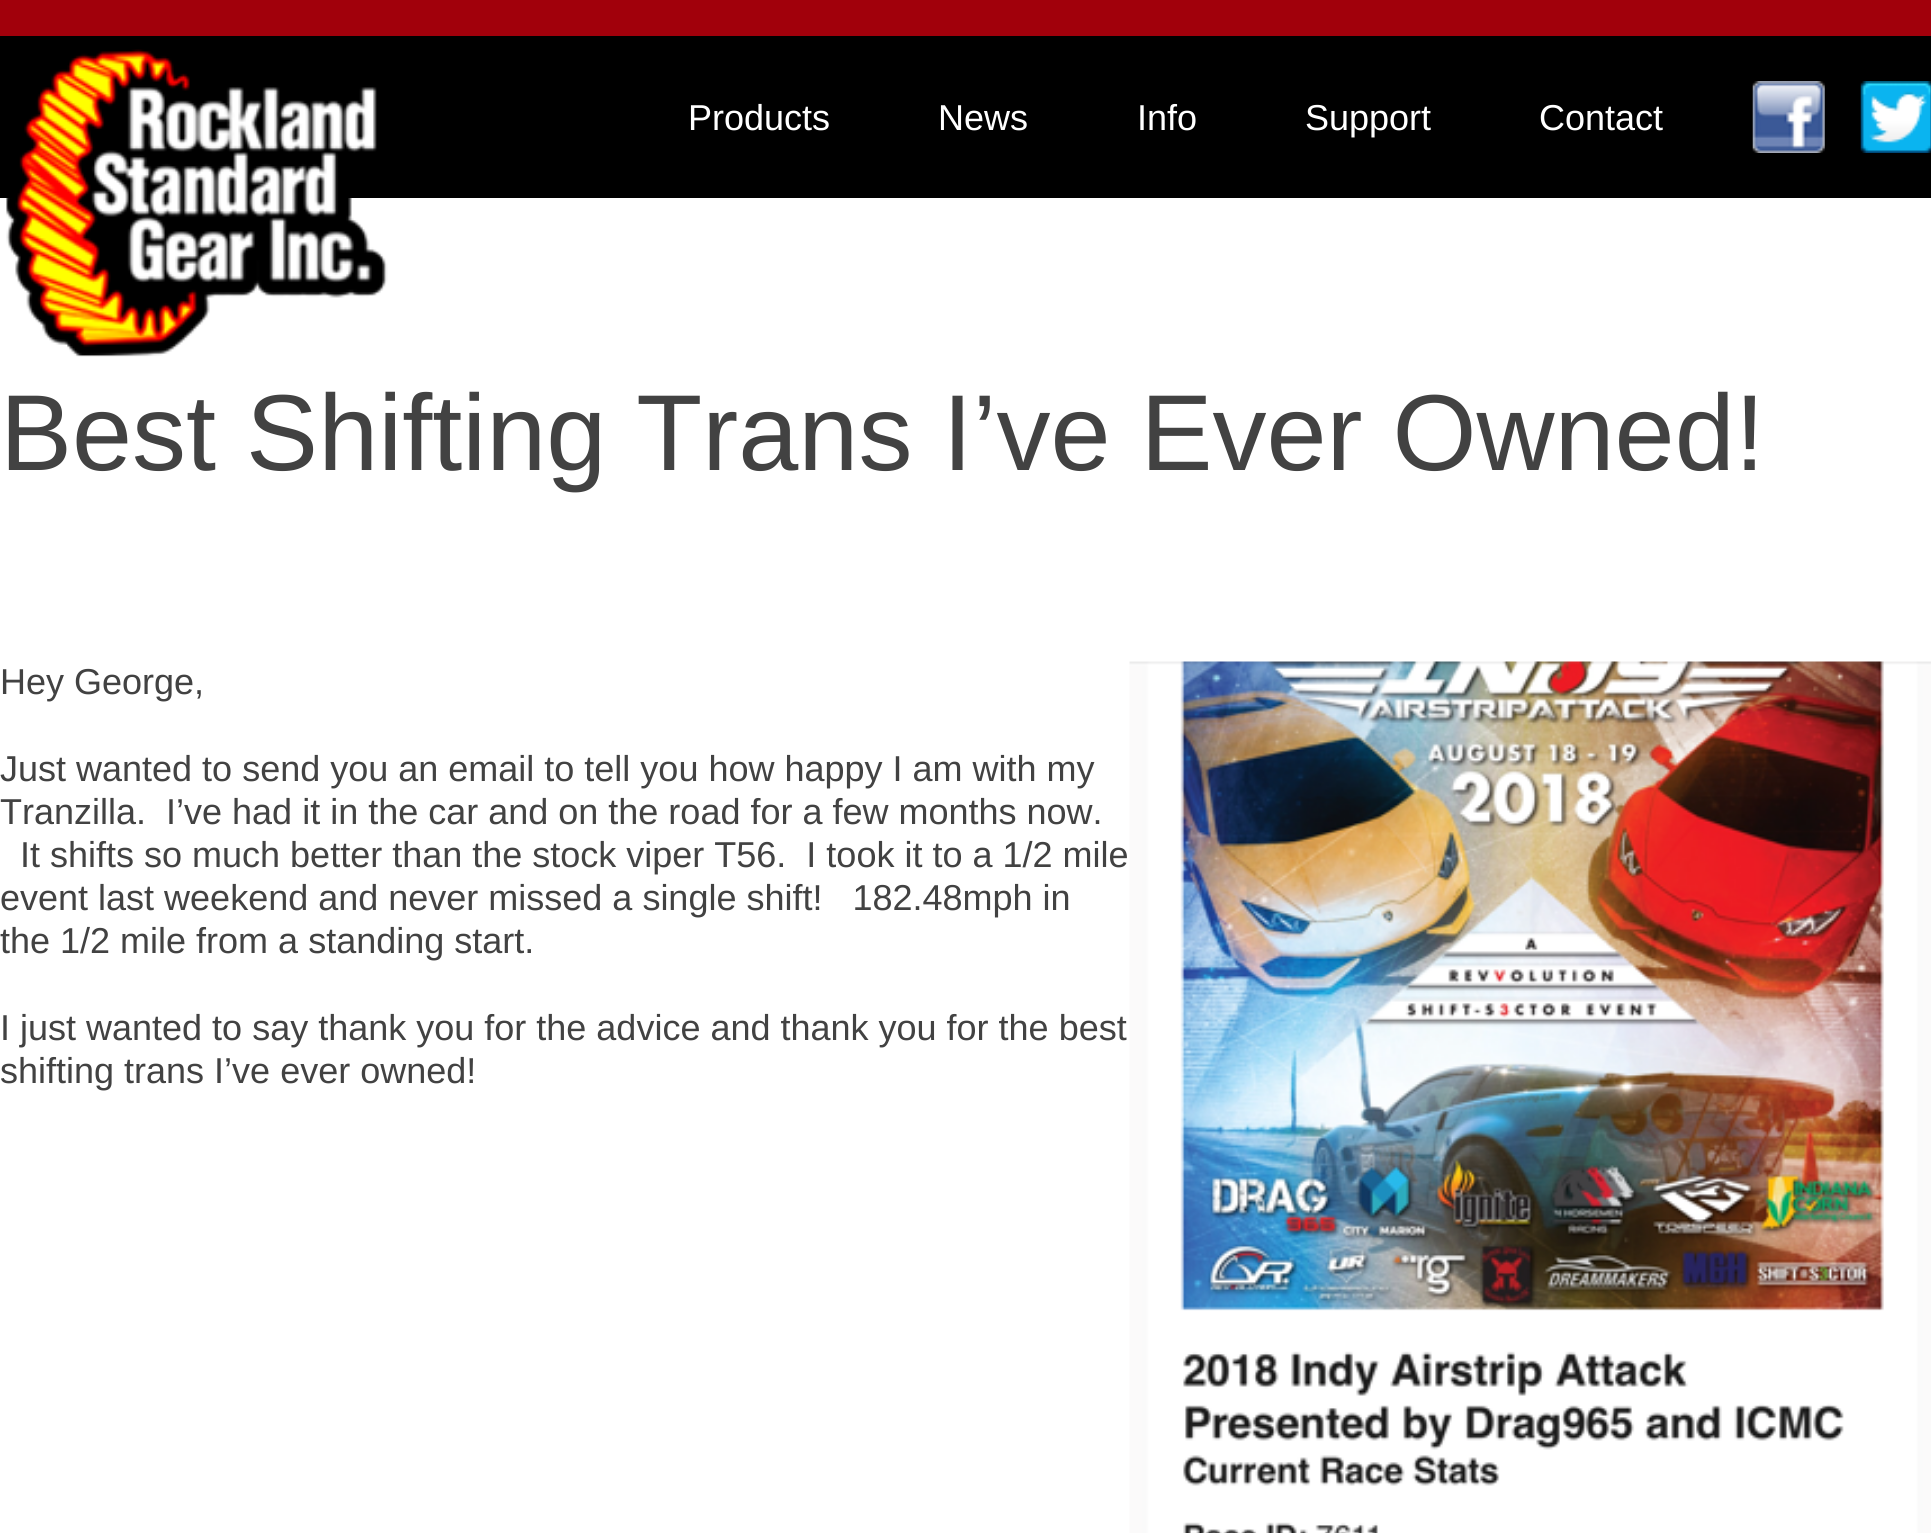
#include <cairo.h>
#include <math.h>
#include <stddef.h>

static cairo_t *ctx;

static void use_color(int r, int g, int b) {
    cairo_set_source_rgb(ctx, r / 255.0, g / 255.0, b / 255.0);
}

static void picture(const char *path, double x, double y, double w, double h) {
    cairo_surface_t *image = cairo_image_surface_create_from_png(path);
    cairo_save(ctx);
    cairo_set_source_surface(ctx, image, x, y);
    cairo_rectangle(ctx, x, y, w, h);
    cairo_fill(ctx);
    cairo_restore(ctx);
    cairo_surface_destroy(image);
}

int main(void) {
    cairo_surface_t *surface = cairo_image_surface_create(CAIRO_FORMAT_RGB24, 1931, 1533);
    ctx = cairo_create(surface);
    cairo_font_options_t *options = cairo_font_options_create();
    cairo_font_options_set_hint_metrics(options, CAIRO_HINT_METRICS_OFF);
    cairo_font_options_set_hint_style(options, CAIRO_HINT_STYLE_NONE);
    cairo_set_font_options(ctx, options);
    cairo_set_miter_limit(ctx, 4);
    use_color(255, 255, 255);
    cairo_paint(ctx);
    use_color(0, 0, 0);
    cairo_rectangle(ctx, 0, 36, 1931, 162);
    cairo_fill(ctx);
    use_color(161, 0, 11);
    cairo_rectangle(ctx, 0, 0, 1931, 36);
    cairo_fill(ctx);
    picture("img1.png", 6, 49, 382, 308);
    cairo_select_font_face(ctx, "Arimo", CAIRO_FONT_SLANT_NORMAL, CAIRO_FONT_WEIGHT_NORMAL);
    cairo_set_font_size(ctx, 36);
    use_color(255, 255, 255);
    cairo_move_to(ctx, 688, 130);
    cairo_show_text(ctx, "Products");
    cairo_move_to(ctx, 938, 130);
    cairo_show_text(ctx, "News");
    cairo_move_to(ctx, 1137, 130);
    cairo_show_text(ctx, "Info");
    cairo_move_to(ctx, 1305, 130);
    cairo_show_text(ctx, "Support");
    cairo_move_to(ctx, 1539, 130);
    cairo_show_text(ctx, "Contact");
    picture("img2.png", 1752, 81, 73, 72);
    picture("img3.png", 1860, 81, 71, 72);
    cairo_set_font_size(ctx, 108);
    use_color(66, 66, 66);
    cairo_move_to(ctx, 0, 470);
    cairo_show_text(ctx, "Best Shifting Trans I’ve Ever Owned!");
    cairo_set_font_size(ctx, 36);
    cairo_move_to(ctx, 0, 694);
    cairo_show_text(ctx, "Hey George,");
    picture("img4.png", 1129, 661, 802, 872);
    cairo_move_to(ctx, 0, 781);
    cairo_show_text(ctx, "Just wanted to send you an email to tell you how happy I am with my");
    cairo_move_to(ctx, 0, 824);
    cairo_show_text(ctx, "Tranzilla.  I’ve had it in the car and on the road for a few months now.");
    cairo_move_to(ctx, 20, 867);
    cairo_show_text(ctx, "It shifts so much better than the stock viper T56.  I took it to a 1/2 mile");
    cairo_move_to(ctx, 0, 910);
    cairo_show_text(ctx, "event last weekend and never missed a single shift!   182.48mph in");
    cairo_move_to(ctx, 0, 953);
    cairo_show_text(ctx, "the 1/2 mile from a standing start.");
    cairo_move_to(ctx, 0, 1040);
    cairo_show_text(ctx, "I just wanted to say thank you for the advice and thank you for the best");
    cairo_move_to(ctx, 0, 1083);
    cairo_show_text(ctx, "shifting trans I’ve ever owned!");
    cairo_surface_write_to_png(surface, "result.png");
    cairo_font_options_destroy(options);
    cairo_destroy(ctx);
    cairo_surface_destroy(surface);
    return 0;
}
